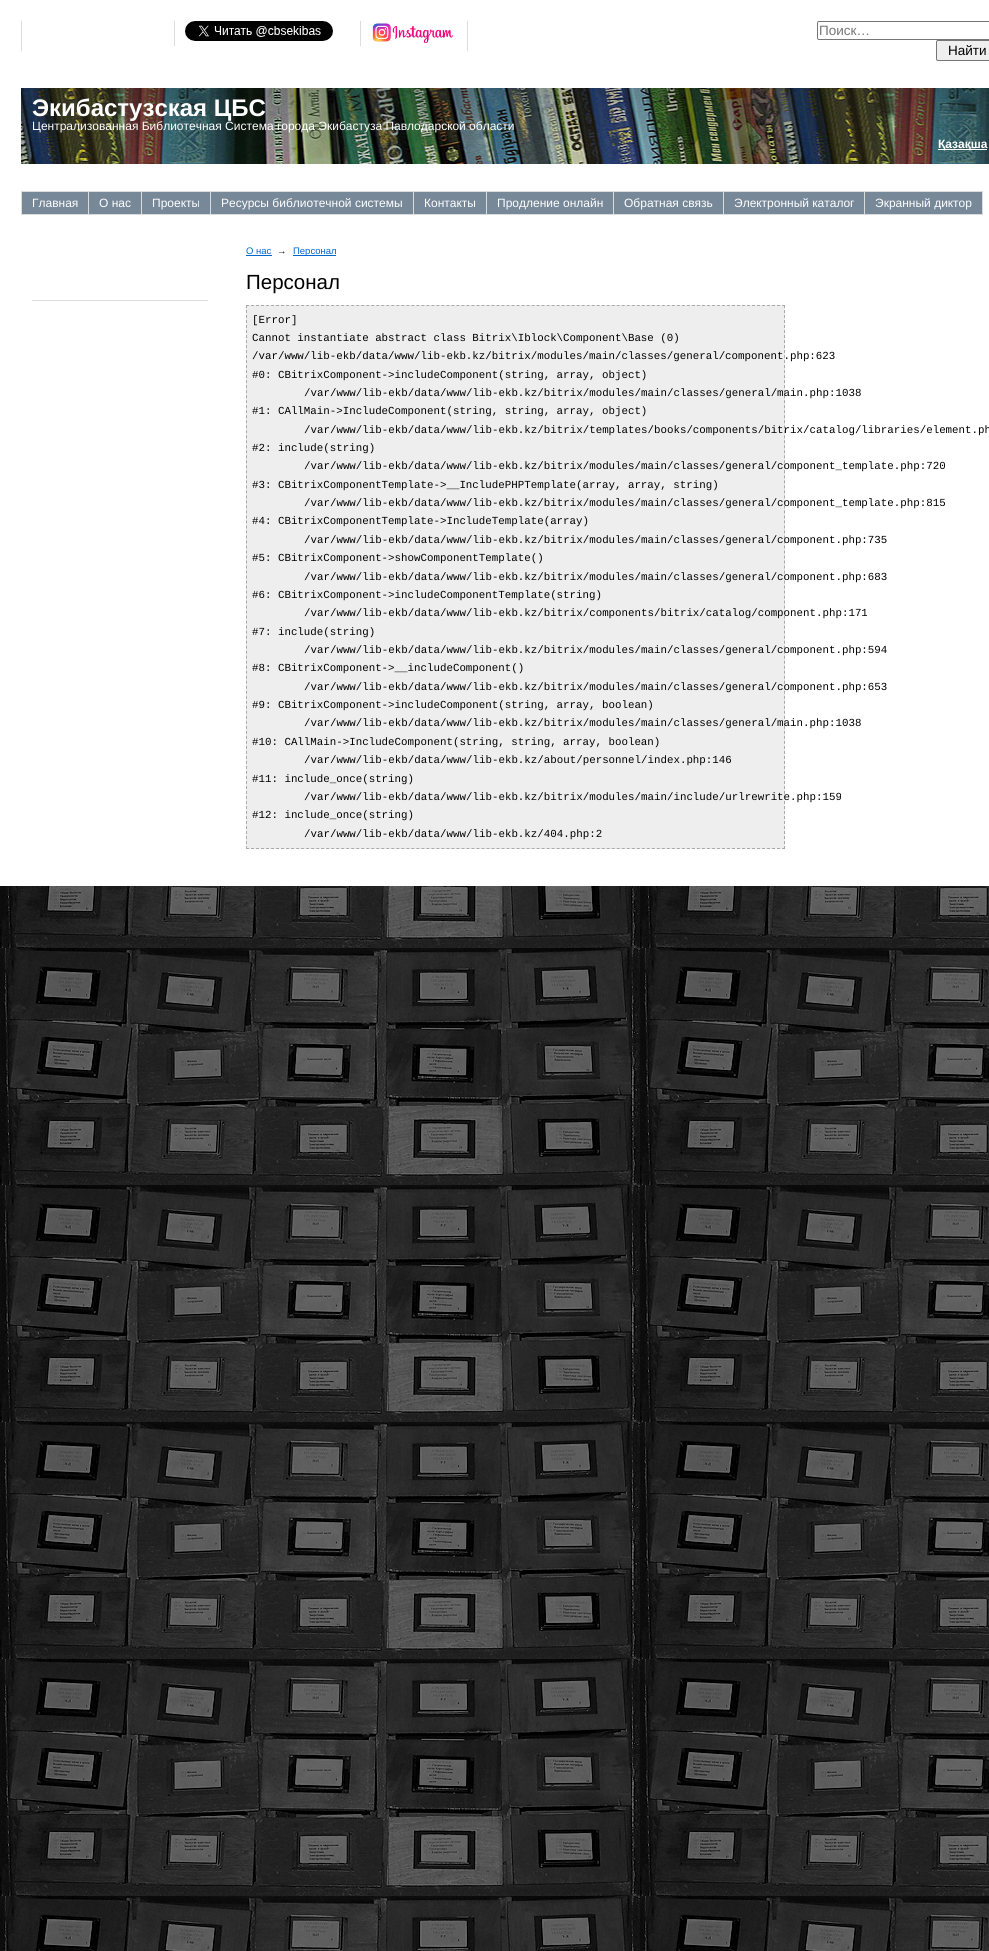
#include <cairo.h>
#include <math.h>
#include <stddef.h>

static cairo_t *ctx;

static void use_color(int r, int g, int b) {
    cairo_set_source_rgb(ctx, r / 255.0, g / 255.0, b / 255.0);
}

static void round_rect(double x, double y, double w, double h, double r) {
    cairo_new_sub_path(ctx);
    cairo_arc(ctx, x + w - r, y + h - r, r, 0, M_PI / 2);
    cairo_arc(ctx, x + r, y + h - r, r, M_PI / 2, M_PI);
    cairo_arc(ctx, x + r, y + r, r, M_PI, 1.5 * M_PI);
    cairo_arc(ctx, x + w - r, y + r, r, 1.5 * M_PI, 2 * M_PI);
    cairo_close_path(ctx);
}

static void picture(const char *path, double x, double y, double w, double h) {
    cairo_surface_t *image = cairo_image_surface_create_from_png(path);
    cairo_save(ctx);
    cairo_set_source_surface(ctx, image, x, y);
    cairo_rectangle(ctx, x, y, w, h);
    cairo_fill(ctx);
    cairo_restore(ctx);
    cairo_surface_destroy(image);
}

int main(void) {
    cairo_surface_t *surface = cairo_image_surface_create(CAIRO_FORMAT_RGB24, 989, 1951);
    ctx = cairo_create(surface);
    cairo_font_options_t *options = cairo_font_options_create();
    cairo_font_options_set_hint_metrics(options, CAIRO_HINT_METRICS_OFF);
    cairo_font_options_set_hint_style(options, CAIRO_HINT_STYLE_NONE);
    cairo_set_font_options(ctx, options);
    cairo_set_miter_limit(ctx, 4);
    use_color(255, 255, 255);
    cairo_paint(ctx);
    picture("img1.png", 0, 886, 989, 1065);
    use_color(220, 220, 220);
    cairo_rectangle(ctx, 21, 21, 1, 30);
    cairo_fill(ctx);
    cairo_rectangle(ctx, 174, 21, 1, 25);
    cairo_fill(ctx);
    cairo_rectangle(ctx, 360, 21, 1, 25);
    cairo_fill(ctx);
    picture("img2.png", 185, 21, 148, 20);
    cairo_rectangle(ctx, 467, 21, 1, 30);
    cairo_fill(ctx);
    picture("img3.png", 372, 23, 81, 21);
    round_rect(817.5, 21.5, 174, 18, 1.5);
    use_color(118, 118, 118);
    cairo_set_line_width(ctx, 1);
    cairo_stroke(ctx);
    cairo_select_font_face(ctx, "Liberation Sans", CAIRO_FONT_SLANT_NORMAL, CAIRO_FONT_WEIGHT_NORMAL);
    cairo_set_font_size(ctx, 13.5);
    use_color(117, 117, 117);
    cairo_move_to(ctx, 819, 35);
    cairo_show_text(ctx, "Поиск…");
    use_color(239, 239, 239);
    round_rect(936.5, 40.5, 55, 20, 1.5);
    cairo_fill_preserve(ctx);
    use_color(118, 118, 118);
    cairo_stroke(ctx);
    use_color(0, 0, 0);
    cairo_move_to(ctx, 948, 55);
    cairo_show_text(ctx, "Найти");
    picture("img4.png", 21, 88, 968, 76);
    cairo_select_font_face(ctx, "Liberation Sans", CAIRO_FONT_SLANT_NORMAL, CAIRO_FONT_WEIGHT_BOLD);
    cairo_set_font_size(ctx, 24);
    use_color(255, 255, 255);
    cairo_move_to(ctx, 32, 116);
    cairo_show_text(ctx, "Экибастузская ЦБС");
    cairo_select_font_face(ctx, "Liberation Sans", CAIRO_FONT_SLANT_NORMAL, CAIRO_FONT_WEIGHT_NORMAL);
    cairo_set_font_size(ctx, 12);
    cairo_move_to(ctx, 32, 130);
    cairo_show_text(ctx, "Централизованная Библиотечная Система города Экибастуза Павлодарской области");
    cairo_rectangle(ctx, 938, 149, 49, 1);
    cairo_fill(ctx);
    cairo_select_font_face(ctx, "Liberation Sans", CAIRO_FONT_SLANT_NORMAL, CAIRO_FONT_WEIGHT_BOLD);
    cairo_move_to(ctx, 938, 148);
    cairo_show_text(ctx, "Қазақша");
    use_color(220, 220, 220);
    cairo_rectangle(ctx, 21, 191, 1, 24);
    cairo_fill(ctx);
    use_color(119, 136, 153);
    cairo_rectangle(ctx, 22, 192, 66, 22);
    cairo_fill(ctx);
    use_color(220, 220, 220);
    cairo_rectangle(ctx, 22, 191, 961, 1);
    cairo_fill(ctx);
    cairo_rectangle(ctx, 88, 191, 1, 24);
    cairo_fill(ctx);
    cairo_rectangle(ctx, 22, 214, 67, 1);
    cairo_fill(ctx);
    cairo_select_font_face(ctx, "Liberation Sans", CAIRO_FONT_SLANT_NORMAL, CAIRO_FONT_WEIGHT_NORMAL);
    use_color(255, 255, 255);
    cairo_move_to(ctx, 32, 207);
    cairo_show_text(ctx, "Главная");
    use_color(119, 136, 153);
    cairo_rectangle(ctx, 89, 192, 52, 22);
    cairo_fill(ctx);
    use_color(220, 220, 220);
    cairo_rectangle(ctx, 141, 191, 1, 24);
    cairo_fill(ctx);
    cairo_rectangle(ctx, 89, 214, 53, 1);
    cairo_fill(ctx);
    use_color(255, 255, 255);
    cairo_move_to(ctx, 99, 207);
    cairo_show_text(ctx, "О нас");
    use_color(119, 136, 153);
    cairo_rectangle(ctx, 142, 192, 68, 22);
    cairo_fill(ctx);
    use_color(220, 220, 220);
    cairo_rectangle(ctx, 210, 191, 1, 24);
    cairo_fill(ctx);
    cairo_rectangle(ctx, 142, 214, 69, 1);
    cairo_fill(ctx);
    use_color(255, 255, 255);
    cairo_move_to(ctx, 152, 207);
    cairo_show_text(ctx, "Проекты");
    use_color(119, 136, 153);
    cairo_rectangle(ctx, 211, 192, 202, 22);
    cairo_fill(ctx);
    use_color(220, 220, 220);
    cairo_rectangle(ctx, 413, 191, 1, 24);
    cairo_fill(ctx);
    cairo_rectangle(ctx, 211, 214, 203, 1);
    cairo_fill(ctx);
    use_color(255, 255, 255);
    cairo_move_to(ctx, 221, 207);
    cairo_show_text(ctx, "Ресурсы библиотечной системы");
    use_color(119, 136, 153);
    cairo_rectangle(ctx, 414, 192, 72, 22);
    cairo_fill(ctx);
    use_color(220, 220, 220);
    cairo_rectangle(ctx, 486, 191, 1, 24);
    cairo_fill(ctx);
    cairo_rectangle(ctx, 414, 214, 73, 1);
    cairo_fill(ctx);
    use_color(255, 255, 255);
    cairo_move_to(ctx, 424, 207);
    cairo_show_text(ctx, "Контакты");
    use_color(119, 136, 153);
    cairo_rectangle(ctx, 487, 192, 126, 22);
    cairo_fill(ctx);
    use_color(220, 220, 220);
    cairo_rectangle(ctx, 613, 191, 1, 24);
    cairo_fill(ctx);
    cairo_rectangle(ctx, 487, 214, 127, 1);
    cairo_fill(ctx);
    use_color(255, 255, 255);
    cairo_move_to(ctx, 497, 207);
    cairo_show_text(ctx, "Продление онлайн");
    use_color(119, 136, 153);
    cairo_rectangle(ctx, 614, 192, 109, 22);
    cairo_fill(ctx);
    use_color(220, 220, 220);
    cairo_rectangle(ctx, 723, 191, 1, 24);
    cairo_fill(ctx);
    cairo_rectangle(ctx, 614, 214, 110, 1);
    cairo_fill(ctx);
    use_color(255, 255, 255);
    cairo_move_to(ctx, 624, 207);
    cairo_show_text(ctx, "Обратная связь");
    use_color(119, 136, 153);
    cairo_rectangle(ctx, 724, 192, 140, 22);
    cairo_fill(ctx);
    use_color(220, 220, 220);
    cairo_rectangle(ctx, 864, 191, 1, 24);
    cairo_fill(ctx);
    cairo_rectangle(ctx, 724, 214, 141, 1);
    cairo_fill(ctx);
    use_color(255, 255, 255);
    cairo_move_to(ctx, 734, 207);
    cairo_show_text(ctx, "Электронный каталог");
    use_color(119, 136, 153);
    cairo_rectangle(ctx, 865, 192, 117, 22);
    cairo_fill(ctx);
    use_color(220, 220, 220);
    cairo_rectangle(ctx, 982, 191, 1, 24);
    cairo_fill(ctx);
    cairo_rectangle(ctx, 865, 214, 118, 1);
    cairo_fill(ctx);
    use_color(255, 255, 255);
    cairo_move_to(ctx, 875, 207);
    cairo_show_text(ctx, "Экранный диктор");
    use_color(220, 220, 220);
    cairo_rectangle(ctx, 32, 300, 176, 1);
    cairo_fill(ctx);
    cairo_set_font_size(ctx, 9.5);
    use_color(0, 102, 204);
    cairo_move_to(ctx, 246, 254);
    cairo_show_text(ctx, "О нас");
    cairo_rectangle(ctx, 246, 255, 26, 1);
    cairo_fill(ctx);
    use_color(0, 0, 0);
    cairo_move_to(ctx, 277, 254);
    cairo_show_text(ctx, "→");
    use_color(0, 102, 204);
    cairo_rectangle(ctx, 293, 255, 43, 1);
    cairo_fill(ctx);
    cairo_move_to(ctx, 293, 254);
    cairo_show_text(ctx, "Персонал");
    cairo_set_font_size(ctx, 20.5);
    use_color(0, 0, 0);
    cairo_move_to(ctx, 246, 289);
    cairo_show_text(ctx, "Персонал");
    use_color(238, 238, 238);
    cairo_rectangle(ctx, 246, 305, 539, 544);
    cairo_fill(ctx);
    cairo_new_path(ctx);
    cairo_move_to(ctx, 246, 305.5);
    cairo_line_to(ctx, 785, 305.5);
    use_color(170, 170, 170);
    cairo_set_dash(ctx, (double[]){3, 2.01}, 2, 0);
    cairo_stroke(ctx);
    cairo_new_path(ctx);
    cairo_move_to(ctx, 784.5, 305);
    cairo_line_to(ctx, 784.5, 849);
    cairo_stroke(ctx);
    cairo_new_path(ctx);
    cairo_move_to(ctx, 246, 848.5);
    cairo_line_to(ctx, 785, 848.5);
    cairo_stroke(ctx);
    cairo_new_path(ctx);
    cairo_move_to(ctx, 246.5, 305);
    cairo_line_to(ctx, 246.5, 849);
    cairo_stroke(ctx);
    cairo_select_font_face(ctx, "Liberation Mono", CAIRO_FONT_SLANT_NORMAL, CAIRO_FONT_WEIGHT_NORMAL);
    cairo_set_font_size(ctx, 10.8);
    use_color(0, 0, 0);
    cairo_move_to(ctx, 252, 323);
    cairo_show_text(ctx, "[Error]");
    cairo_move_to(ctx, 252, 341);
    cairo_show_text(ctx, "Cannot instantiate abstract class Bitrix\\Iblock\\Component\\Base (0)");
    cairo_move_to(ctx, 252, 359);
    cairo_show_text(ctx, "/var/www/lib-ekb/data/www/lib-ekb.kz/bitrix/modules/main/classes/general/component.php:623");
    cairo_move_to(ctx, 252, 378);
    cairo_show_text(ctx, "#0: CBitrixComponent->includeComponent(string, array, object)");
    cairo_move_to(ctx, 304, 396);
    cairo_show_text(ctx, "/var/www/lib-ekb/data/www/lib-ekb.kz/bitrix/modules/main/classes/general/main.php:1038");
    cairo_move_to(ctx, 252, 414);
    cairo_show_text(ctx, "#1: CAllMain->IncludeComponent(string, string, array, object)");
    cairo_move_to(ctx, 304, 433);
    cairo_show_text(ctx, "/var/www/lib-ekb/data/www/lib-ekb.kz/bitrix/templates/books/components/bitrix/catalog/libraries/element.ph");
    cairo_move_to(ctx, 252, 451);
    cairo_show_text(ctx, "#2: include(string)");
    cairo_move_to(ctx, 304, 469);
    cairo_show_text(ctx, "/var/www/lib-ekb/data/www/lib-ekb.kz/bitrix/modules/main/classes/general/component_template.php:720");
    cairo_move_to(ctx, 252, 488);
    cairo_show_text(ctx, "#3: CBitrixComponentTemplate->__IncludePHPTemplate(array, array, string)");
    cairo_move_to(ctx, 304, 506);
    cairo_show_text(ctx, "/var/www/lib-ekb/data/www/lib-ekb.kz/bitrix/modules/main/classes/general/component_template.php:815");
    cairo_move_to(ctx, 252, 524);
    cairo_show_text(ctx, "#4: CBitrixComponentTemplate->IncludeTemplate(array)");
    cairo_move_to(ctx, 304, 543);
    cairo_show_text(ctx, "/var/www/lib-ekb/data/www/lib-ekb.kz/bitrix/modules/main/classes/general/component.php:735");
    cairo_move_to(ctx, 252, 561);
    cairo_show_text(ctx, "#5: CBitrixComponent->showComponentTemplate()");
    cairo_move_to(ctx, 304, 580);
    cairo_show_text(ctx, "/var/www/lib-ekb/data/www/lib-ekb.kz/bitrix/modules/main/classes/general/component.php:683");
    cairo_move_to(ctx, 252, 598);
    cairo_show_text(ctx, "#6: CBitrixComponent->includeComponentTemplate(string)");
    cairo_move_to(ctx, 304, 616);
    cairo_show_text(ctx, "/var/www/lib-ekb/data/www/lib-ekb.kz/bitrix/components/bitrix/catalog/component.php:171");
    cairo_move_to(ctx, 252, 635);
    cairo_show_text(ctx, "#7: include(string)");
    cairo_move_to(ctx, 304, 653);
    cairo_show_text(ctx, "/var/www/lib-ekb/data/www/lib-ekb.kz/bitrix/modules/main/classes/general/component.php:594");
    cairo_move_to(ctx, 252, 671);
    cairo_show_text(ctx, "#8: CBitrixComponent->__includeComponent()");
    cairo_move_to(ctx, 304, 690);
    cairo_show_text(ctx, "/var/www/lib-ekb/data/www/lib-ekb.kz/bitrix/modules/main/classes/general/component.php:653");
    cairo_move_to(ctx, 252, 708);
    cairo_show_text(ctx, "#9: CBitrixComponent->includeComponent(string, array, boolean)");
    cairo_move_to(ctx, 304, 726);
    cairo_show_text(ctx, "/var/www/lib-ekb/data/www/lib-ekb.kz/bitrix/modules/main/classes/general/main.php:1038");
    cairo_move_to(ctx, 252, 745);
    cairo_show_text(ctx, "#10: CAllMain->IncludeComponent(string, string, array, boolean)");
    cairo_move_to(ctx, 304, 763);
    cairo_show_text(ctx, "/var/www/lib-ekb/data/www/lib-ekb.kz/about/personnel/index.php:146");
    cairo_move_to(ctx, 252, 782);
    cairo_show_text(ctx, "#11: include_once(string)");
    cairo_move_to(ctx, 304, 800);
    cairo_show_text(ctx, "/var/www/lib-ekb/data/www/lib-ekb.kz/bitrix/modules/main/include/urlrewrite.php:159");
    cairo_move_to(ctx, 252, 818);
    cairo_show_text(ctx, "#12: include_once(string)");
    cairo_move_to(ctx, 304, 837);
    cairo_show_text(ctx, "/var/www/lib-ekb/data/www/lib-ekb.kz/404.php:2");
    cairo_surface_write_to_png(surface, "result.png");
    cairo_font_options_destroy(options);
    cairo_destroy(ctx);
    cairo_surface_destroy(surface);
    return 0;
}
